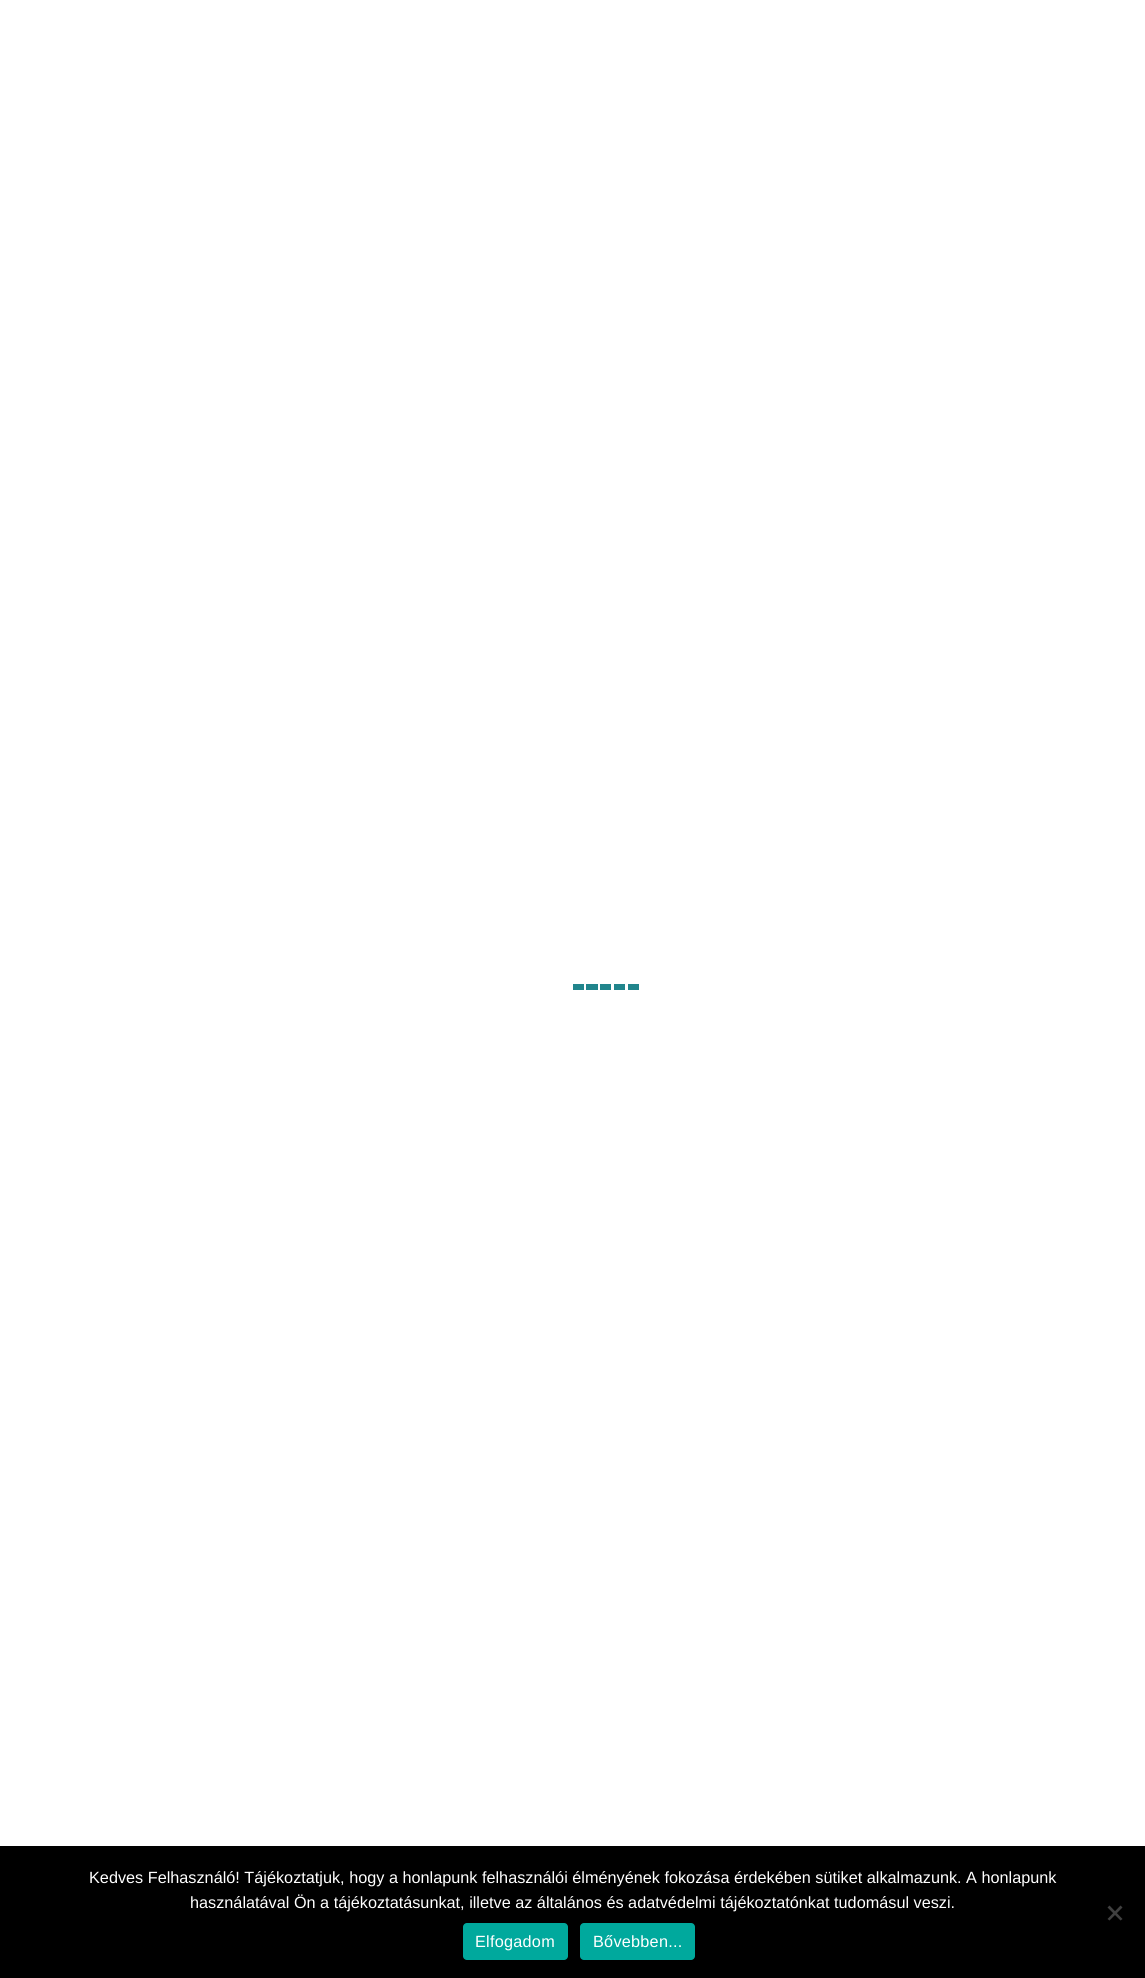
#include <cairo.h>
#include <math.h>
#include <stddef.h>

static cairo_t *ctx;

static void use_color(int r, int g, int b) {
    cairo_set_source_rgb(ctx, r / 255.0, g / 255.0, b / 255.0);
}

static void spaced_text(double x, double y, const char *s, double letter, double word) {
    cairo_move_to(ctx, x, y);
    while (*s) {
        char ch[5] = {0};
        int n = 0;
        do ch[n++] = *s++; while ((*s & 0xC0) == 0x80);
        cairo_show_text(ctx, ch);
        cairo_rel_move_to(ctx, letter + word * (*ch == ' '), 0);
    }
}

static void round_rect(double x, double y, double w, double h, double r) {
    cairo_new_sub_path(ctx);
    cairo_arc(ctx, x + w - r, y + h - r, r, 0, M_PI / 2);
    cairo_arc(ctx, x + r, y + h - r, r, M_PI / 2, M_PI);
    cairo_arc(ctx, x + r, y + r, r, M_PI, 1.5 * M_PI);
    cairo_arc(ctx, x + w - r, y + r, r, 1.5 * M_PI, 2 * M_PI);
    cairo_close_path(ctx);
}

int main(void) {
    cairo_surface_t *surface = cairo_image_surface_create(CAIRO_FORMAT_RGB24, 1145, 1978);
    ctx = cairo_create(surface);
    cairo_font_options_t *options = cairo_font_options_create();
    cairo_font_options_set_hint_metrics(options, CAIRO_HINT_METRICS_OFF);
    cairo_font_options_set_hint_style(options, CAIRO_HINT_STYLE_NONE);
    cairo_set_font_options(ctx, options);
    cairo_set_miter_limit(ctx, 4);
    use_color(255, 255, 255);
    cairo_paint(ctx);
    use_color(33, 133, 140);
    cairo_rectangle(ctx, 573, 984, 11, 6);
    cairo_fill(ctx);
    cairo_rectangle(ctx, 586, 984, 12, 6);
    cairo_fill(ctx);
    cairo_rectangle(ctx, 600, 984, 11, 6);
    cairo_fill(ctx);
    cairo_rectangle(ctx, 614, 984, 11, 6);
    cairo_fill(ctx);
    cairo_rectangle(ctx, 628, 984, 11, 6);
    cairo_fill(ctx);
    use_color(0, 0, 0);
    cairo_rectangle(ctx, 0, 1846, 1145, 132);
    cairo_fill(ctx);
    cairo_select_font_face(ctx, "Liberation Sans", CAIRO_FONT_SLANT_NORMAL, CAIRO_FONT_WEIGHT_NORMAL);
    cairo_set_font_size(ctx, 16.25);
    use_color(255, 255, 255);
    cairo_move_to(ctx, 89, 1883);
    cairo_show_text(ctx, "Kedves Felhasználó! Tájékoztatjuk, hogy a honlapunk felhasználói élményének fokozása érdekében sütiket alkalmazunk. A honlapunk");
    cairo_move_to(ctx, 190, 1908);
    cairo_show_text(ctx, "használatával Ön a tájékoztatásunkat, illetve az általános és adatvédelmi tájékoztatónkat tudomásul veszi.");
    use_color(64, 64, 64);
    cairo_new_path(ctx);
    cairo_move_to(ctx, 1120.5, 1905.5);
    cairo_line_to(ctx, 1122.5, 1907.5);
    cairo_line_to(ctx, 1109.5, 1920.5);
    cairo_line_to(ctx, 1107.5, 1919);
    cairo_close_path(ctx);
    cairo_fill(ctx);
    cairo_new_path(ctx);
    cairo_move_to(ctx, 1107.5, 1907.5);
    cairo_line_to(ctx, 1109.5, 1905.5);
    cairo_line_to(ctx, 1122.5, 1919);
    cairo_line_to(ctx, 1120.5, 1920.5);
    cairo_close_path(ctx);
    cairo_fill(ctx);
    use_color(0, 169, 157);
    round_rect(463, 1923, 105, 37, 4);
    cairo_fill(ctx);
    use_color(255, 255, 255);
    spaced_text(475, 1947, "Elfogadom", 0.25, 0);
    use_color(0, 169, 157);
    round_rect(580, 1923, 115, 37, 4);
    cairo_fill(ctx);
    use_color(255, 255, 255);
    spaced_text(593, 1947, "Bővebben...", 0.25, 0);
    cairo_surface_write_to_png(surface, "result.png");
    cairo_font_options_destroy(options);
    cairo_destroy(ctx);
    cairo_surface_destroy(surface);
    return 0;
}
